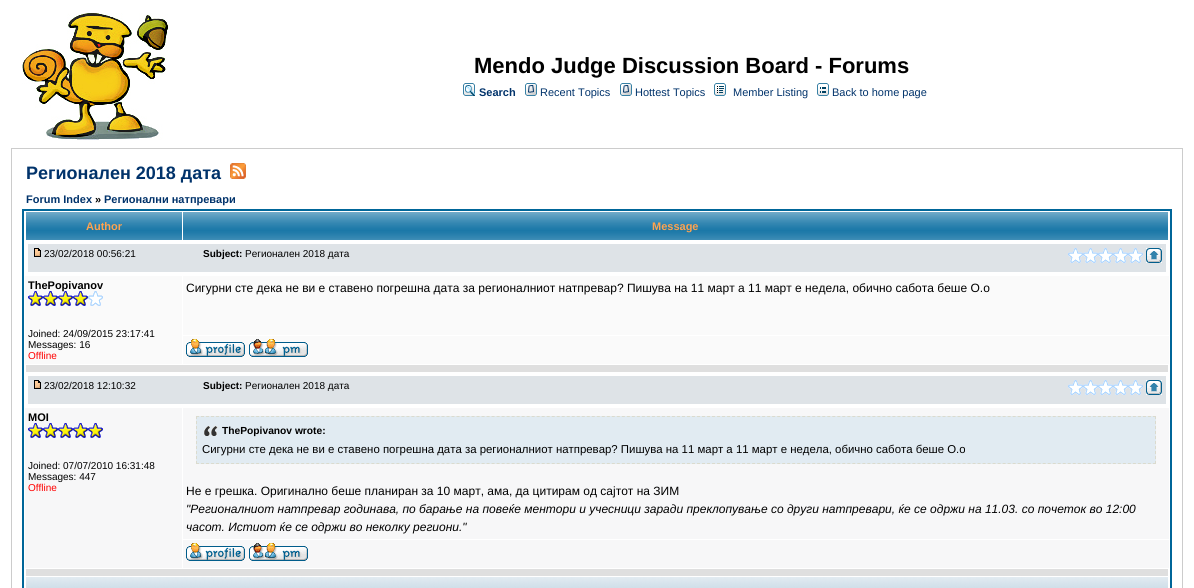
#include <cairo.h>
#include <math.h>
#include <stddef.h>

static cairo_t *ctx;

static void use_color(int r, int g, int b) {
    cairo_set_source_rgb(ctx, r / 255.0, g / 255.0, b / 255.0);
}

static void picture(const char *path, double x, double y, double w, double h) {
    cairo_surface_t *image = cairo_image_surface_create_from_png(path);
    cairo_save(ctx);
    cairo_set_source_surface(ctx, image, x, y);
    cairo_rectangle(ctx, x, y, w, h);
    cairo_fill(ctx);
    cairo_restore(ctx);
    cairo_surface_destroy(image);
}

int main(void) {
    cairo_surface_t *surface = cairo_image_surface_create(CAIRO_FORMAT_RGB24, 1194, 588);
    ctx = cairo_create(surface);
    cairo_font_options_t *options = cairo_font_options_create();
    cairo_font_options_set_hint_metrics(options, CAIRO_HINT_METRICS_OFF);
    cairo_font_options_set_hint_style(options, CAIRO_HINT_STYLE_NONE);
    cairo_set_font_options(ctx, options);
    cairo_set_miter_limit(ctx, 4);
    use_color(255, 255, 255);
    cairo_paint(ctx);
    picture("img1.png", 22, 13, 146, 127);
    cairo_select_font_face(ctx, "Liberation Sans", CAIRO_FONT_SLANT_NORMAL, CAIRO_FONT_WEIGHT_BOLD);
    cairo_set_font_size(ctx, 22);
    use_color(0, 0, 0);
    cairo_move_to(ctx, 474, 73);
    cairo_show_text(ctx, "Mendo Judge Discussion Board - Forums");
    picture("img2.png", 463, 83, 12, 13);
    cairo_set_font_size(ctx, 11);
    use_color(1, 51, 107);
    cairo_move_to(ctx, 479, 96);
    cairo_show_text(ctx, "Search");
    picture("img3.png", 525, 83, 12, 13);
    cairo_select_font_face(ctx, "Liberation Sans", CAIRO_FONT_SLANT_NORMAL, CAIRO_FONT_WEIGHT_NORMAL);
    cairo_move_to(ctx, 540, 96);
    cairo_show_text(ctx, "Recent Topics");
    picture("img3.png", 620, 83, 12, 13);
    cairo_move_to(ctx, 635, 96);
    cairo_show_text(ctx, "Hottest Topics");
    picture("img4.png", 714, 83, 12, 13);
    cairo_move_to(ctx, 733, 96);
    cairo_show_text(ctx, "Member Listing");
    picture("img5.png", 817, 83, 12, 13);
    cairo_move_to(ctx, 832, 96);
    cairo_show_text(ctx, "Back to home page");
    cairo_rectangle(ctx, 11.5, 148.5, 1171, 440);
    use_color(204, 204, 204);
    cairo_set_line_width(ctx, 1);
    cairo_stroke(ctx);
    cairo_select_font_face(ctx, "Liberation Sans", CAIRO_FONT_SLANT_NORMAL, CAIRO_FONT_WEIGHT_BOLD);
    cairo_set_font_size(ctx, 18);
    use_color(1, 51, 107);
    cairo_move_to(ctx, 26, 179);
    cairo_show_text(ctx, "Регионален 2018 дата");
    picture("img6.png", 230, 163, 16, 16);
    cairo_set_font_size(ctx, 11);
    cairo_move_to(ctx, 26, 203);
    cairo_show_text(ctx, "Forum Index");
    use_color(0, 0, 0);
    cairo_move_to(ctx, 95, 203);
    cairo_show_text(ctx, "»");
    use_color(1, 51, 107);
    cairo_move_to(ctx, 104, 203);
    cairo_show_text(ctx, "Регионални натпревари");
    cairo_rectangle(ctx, 23, 210, 1148, 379);
    use_color(0, 102, 153);
    cairo_set_line_width(ctx, 2);
    cairo_stroke(ctx);
    picture("img7.png", 26, 212, 156, 28);
    use_color(255, 163, 79);
    cairo_move_to(ctx, 86, 230);
    cairo_show_text(ctx, "Author");
    picture("img8.png", 183, 212, 985, 28);
    cairo_move_to(ctx, 652, 230);
    cairo_show_text(ctx, "Message");
    use_color(222, 227, 231);
    cairo_rectangle(ctx, 28, 244, 1138, 28);
    cairo_fill(ctx);
    picture("img9.png", 34, 248, 7, 9);
    cairo_select_font_face(ctx, "Liberation Sans", CAIRO_FONT_SLANT_NORMAL, CAIRO_FONT_WEIGHT_NORMAL);
    cairo_set_font_size(ctx, 10);
    use_color(0, 0, 0);
    cairo_move_to(ctx, 44, 257);
    cairo_show_text(ctx, "23/02/2018 00:56:21");
    cairo_select_font_face(ctx, "Liberation Sans", CAIRO_FONT_SLANT_NORMAL, CAIRO_FONT_WEIGHT_BOLD);
    cairo_move_to(ctx, 203, 257);
    cairo_show_text(ctx, "Subject:");
    cairo_select_font_face(ctx, "Liberation Sans", CAIRO_FONT_SLANT_NORMAL, CAIRO_FONT_WEIGHT_NORMAL);
    cairo_move_to(ctx, 245, 257);
    cairo_show_text(ctx, "Регионален 2018 дата");
    picture("img10.png", 1068, 248, 15, 15);
    picture("img10.png", 1083, 248, 15, 15);
    picture("img10.png", 1098, 248, 15, 15);
    picture("img10.png", 1113, 248, 15, 15);
    picture("img10.png", 1128, 248, 15, 15);
    picture("img11.png", 1146, 248, 16, 15);
    use_color(250, 250, 250);
    cairo_rectangle(ctx, 25, 276, 157, 88);
    cairo_fill(ctx);
    cairo_select_font_face(ctx, "Liberation Sans", CAIRO_FONT_SLANT_NORMAL, CAIRO_FONT_WEIGHT_BOLD);
    cairo_set_font_size(ctx, 11);
    use_color(0, 0, 0);
    cairo_move_to(ctx, 28, 289);
    cairo_show_text(ctx, "ThePopivanov");
    picture("img12.png", 28, 291, 15, 15);
    picture("img12.png", 43, 291, 15, 15);
    picture("img13.png", 58, 291, 15, 15);
    picture("img12.png", 73, 291, 15, 15);
    picture("img14.png", 88, 291, 15, 15);
    cairo_select_font_face(ctx, "Liberation Sans", CAIRO_FONT_SLANT_NORMAL, CAIRO_FONT_WEIGHT_NORMAL);
    cairo_set_font_size(ctx, 10);
    cairo_move_to(ctx, 28, 337);
    cairo_show_text(ctx, "Joined: 24/09/2015 23:17:41");
    cairo_move_to(ctx, 28, 348);
    cairo_show_text(ctx, "Messages: 16");
    use_color(255, 0, 0);
    cairo_move_to(ctx, 28, 359);
    cairo_show_text(ctx, "Offline");
    use_color(250, 250, 250);
    cairo_rectangle(ctx, 183, 276, 986, 59);
    cairo_fill(ctx);
    cairo_set_font_size(ctx, 12);
    use_color(0, 0, 0);
    cairo_move_to(ctx, 186, 292);
    cairo_show_text(ctx, "Сигурни сте дека не ви е ставено погрешна дата за регионалниот натпревар? Пишува на 11 март а 11 март е недела, обично сабота беше O.o");
    use_color(250, 250, 250);
    cairo_rectangle(ctx, 183, 336, 986, 28);
    cairo_fill(ctx);
    picture("img15.png", 186, 339, 59, 18);
    picture("img16.png", 249, 339, 59, 18);
    use_color(223, 223, 223);
    cairo_rectangle(ctx, 26, 365, 1142, 7);
    cairo_fill(ctx);
    use_color(222, 227, 231);
    cairo_rectangle(ctx, 28, 376, 1138, 28);
    cairo_fill(ctx);
    picture("img9.png", 34, 380, 7, 9);
    cairo_set_font_size(ctx, 10);
    use_color(0, 0, 0);
    cairo_move_to(ctx, 44, 389);
    cairo_show_text(ctx, "23/02/2018 12:10:32");
    cairo_select_font_face(ctx, "Liberation Sans", CAIRO_FONT_SLANT_NORMAL, CAIRO_FONT_WEIGHT_BOLD);
    cairo_move_to(ctx, 203, 389);
    cairo_show_text(ctx, "Subject:");
    cairo_select_font_face(ctx, "Liberation Sans", CAIRO_FONT_SLANT_NORMAL, CAIRO_FONT_WEIGHT_NORMAL);
    cairo_move_to(ctx, 245, 389);
    cairo_show_text(ctx, "Регионален 2018 дата");
    picture("img10.png", 1068, 380, 15, 15);
    picture("img10.png", 1083, 380, 15, 15);
    picture("img10.png", 1098, 380, 15, 15);
    picture("img10.png", 1113, 380, 15, 15);
    picture("img10.png", 1128, 380, 15, 15);
    picture("img11.png", 1146, 380, 16, 15);
    use_color(247, 247, 248);
    cairo_rectangle(ctx, 25, 408, 157, 160);
    cairo_fill(ctx);
    cairo_select_font_face(ctx, "Liberation Sans", CAIRO_FONT_SLANT_NORMAL, CAIRO_FONT_WEIGHT_BOLD);
    cairo_set_font_size(ctx, 11);
    use_color(0, 0, 0);
    cairo_move_to(ctx, 28, 421);
    cairo_show_text(ctx, "MOI");
    picture("img17.png", 28, 423, 15, 15);
    picture("img17.png", 43, 423, 15, 15);
    picture("img17.png", 58, 423, 15, 15);
    picture("img17.png", 73, 423, 15, 15);
    picture("img17.png", 88, 423, 15, 15);
    cairo_select_font_face(ctx, "Liberation Sans", CAIRO_FONT_SLANT_NORMAL, CAIRO_FONT_WEIGHT_NORMAL);
    cairo_set_font_size(ctx, 10);
    cairo_move_to(ctx, 28, 469);
    cairo_show_text(ctx, "Joined: 07/07/2010 16:31:48");
    cairo_move_to(ctx, 28, 480);
    cairo_show_text(ctx, "Messages: 447");
    use_color(255, 0, 0);
    cairo_move_to(ctx, 28, 491);
    cairo_show_text(ctx, "Offline");
    use_color(247, 247, 248);
    cairo_rectangle(ctx, 183, 408, 986, 131);
    cairo_fill(ctx);
    use_color(225, 235, 242);
    cairo_rectangle(ctx, 196, 416, 960, 48);
    cairo_fill(ctx);
    picture("img18.png", 204, 426, 14, 10);
    cairo_new_path(ctx);
    cairo_move_to(ctx, 196, 416.5);
    cairo_line_to(ctx, 1156, 416.5);
    use_color(219, 219, 206);
    cairo_set_line_width(ctx, 1);
    cairo_set_dash(ctx, (double[]){3, 2.01}, 2, 0);
    cairo_stroke(ctx);
    cairo_new_path(ctx);
    cairo_move_to(ctx, 1155.5, 416);
    cairo_line_to(ctx, 1155.5, 464);
    cairo_set_dash(ctx, (double[]){3, 2}, 2, 0);
    cairo_stroke(ctx);
    cairo_new_path(ctx);
    cairo_move_to(ctx, 196, 463.5);
    cairo_line_to(ctx, 1156, 463.5);
    cairo_set_dash(ctx, (double[]){3, 2.01}, 2, 0);
    cairo_stroke(ctx);
    cairo_new_path(ctx);
    cairo_move_to(ctx, 196.5, 416);
    cairo_line_to(ctx, 196.5, 464);
    cairo_set_dash(ctx, (double[]){3, 2}, 2, 0);
    cairo_stroke(ctx);
    cairo_select_font_face(ctx, "Liberation Sans", CAIRO_FONT_SLANT_NORMAL, CAIRO_FONT_WEIGHT_BOLD);
    cairo_set_font_size(ctx, 10.25);
    use_color(0, 0, 0);
    cairo_move_to(ctx, 222, 434);
    cairo_show_text(ctx, "ThePopivanov wrote:");
    cairo_select_font_face(ctx, "Liberation Sans", CAIRO_FONT_SLANT_NORMAL, CAIRO_FONT_WEIGHT_NORMAL);
    cairo_set_font_size(ctx, 11.4);
    cairo_move_to(ctx, 202, 453);
    cairo_show_text(ctx, "Сигурни сте дека не ви е ставено погрешна дата за регионалниот натпревар? Пишува на 11 март а 11 март е недела, обично сабота беше O.o");
    cairo_set_font_size(ctx, 12);
    cairo_move_to(ctx, 186, 495);
    cairo_show_text(ctx, "Не е грешка. Оригинално беше планиран за 10 март, ама, да цитирам од сајтот на ЗИМ");
    cairo_select_font_face(ctx, "Liberation Sans", CAIRO_FONT_SLANT_ITALIC, CAIRO_FONT_WEIGHT_NORMAL);
    cairo_move_to(ctx, 186, 513);
    cairo_show_text(ctx, "\"Регионалниот натпревар годинава, по барање на повеќе ментори и учесници заради преклопување со други натпревари, ќе се одржи на 11.03. со почеток во 12:00");
    cairo_move_to(ctx, 186, 531);
    cairo_show_text(ctx, "часот. Истиот ќе се одржи во неколку региони.\"");
    use_color(247, 247, 248);
    cairo_rectangle(ctx, 183, 540, 986, 28);
    cairo_fill(ctx);
    picture("img19.png", 186, 543, 59, 18);
    picture("img20.png", 249, 543, 59, 18);
    use_color(223, 223, 223);
    cairo_rectangle(ctx, 26, 569, 1142, 7);
    cairo_fill(ctx);
    picture("img21.png", 26, 577, 1142, 11);
    cairo_surface_write_to_png(surface, "result.png");
    cairo_font_options_destroy(options);
    cairo_destroy(ctx);
    cairo_surface_destroy(surface);
    return 0;
}
